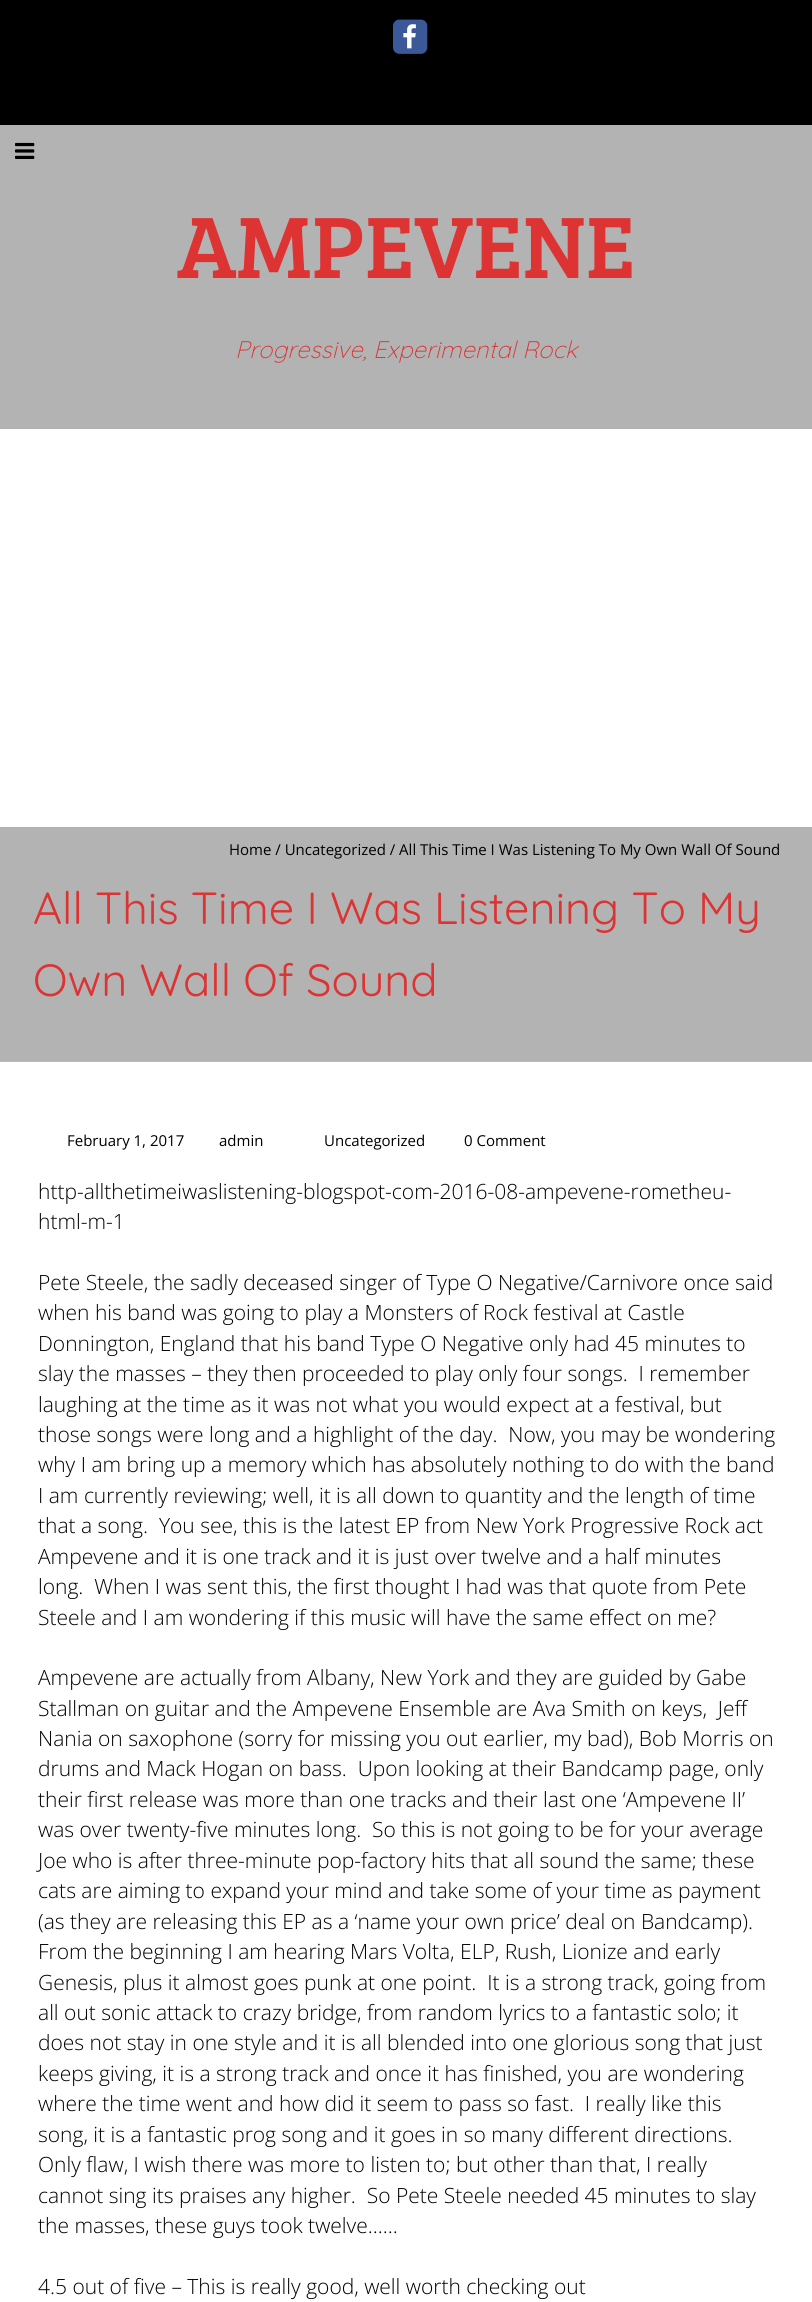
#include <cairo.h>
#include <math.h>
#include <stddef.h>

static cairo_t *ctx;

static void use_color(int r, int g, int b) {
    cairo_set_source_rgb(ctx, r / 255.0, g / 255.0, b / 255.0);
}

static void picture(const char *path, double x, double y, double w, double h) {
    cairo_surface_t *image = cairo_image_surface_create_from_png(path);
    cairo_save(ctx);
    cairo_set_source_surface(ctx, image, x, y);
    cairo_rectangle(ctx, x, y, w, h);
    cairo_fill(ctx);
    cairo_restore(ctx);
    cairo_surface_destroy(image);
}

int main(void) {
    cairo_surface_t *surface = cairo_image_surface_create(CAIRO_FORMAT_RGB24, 812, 2302);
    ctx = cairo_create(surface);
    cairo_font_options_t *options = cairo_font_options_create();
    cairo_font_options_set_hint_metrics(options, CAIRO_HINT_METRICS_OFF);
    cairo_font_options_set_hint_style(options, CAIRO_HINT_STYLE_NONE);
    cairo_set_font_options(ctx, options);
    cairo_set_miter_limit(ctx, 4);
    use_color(255, 255, 255);
    cairo_paint(ctx);
    use_color(0, 0, 0);
    cairo_rectangle(ctx, 0, 0, 812, 125);
    cairo_fill(ctx);
    picture("img1.png", 393, 19, 35, 35);
    picture("img2.png", 403, 24, 13, 25);
    use_color(179, 179, 179);
    cairo_rectangle(ctx, 0, 125, 812, 304);
    cairo_fill(ctx);
    picture("img3.png", 15, 142, 20, 17);
    cairo_select_font_face(ctx, "Bree Serif", CAIRO_FONT_SLANT_NORMAL, CAIRO_FONT_WEIGHT_NORMAL);
    cairo_set_font_size(ctx, 90);
    use_color(221, 51, 51);
    cairo_move_to(ctx, 177, 278);
    cairo_show_text(ctx, "AMPEVENE");
    cairo_select_font_face(ctx, "Quicksand Light", CAIRO_FONT_SLANT_ITALIC, CAIRO_FONT_WEIGHT_NORMAL);
    cairo_set_font_size(ctx, 24);
    cairo_move_to(ctx, 235, 358);
    cairo_show_text(ctx, "Progressive, Experimental Rock");
    use_color(179, 179, 179);
    cairo_rectangle(ctx, 0, 827, 812, 234);
    cairo_fill(ctx);
    use_color(185, 185, 185);
    cairo_rectangle(ctx, 0, 1061, 812, 1);
    cairo_fill(ctx);
    cairo_select_font_face(ctx, "Open Sans", CAIRO_FONT_SLANT_NORMAL, CAIRO_FONT_WEIGHT_NORMAL);
    cairo_set_font_size(ctx, 15);
    use_color(0, 0, 0);
    cairo_move_to(ctx, 229, 855);
    cairo_show_text(ctx, "Home / Uncategorized / All This Time I Was Listening To My Own Wall Of Sound");
    cairo_select_font_face(ctx, "Quicksand", CAIRO_FONT_SLANT_NORMAL, CAIRO_FONT_WEIGHT_NORMAL);
    cairo_set_font_size(ctx, 45);
    use_color(221, 51, 51);
    cairo_move_to(ctx, 33, 924);
    cairo_show_text(ctx, "All This Time I Was Listening To My");
    cairo_move_to(ctx, 33, 996);
    cairo_show_text(ctx, "Own Wall Of Sound");
    cairo_select_font_face(ctx, "Open Sans", CAIRO_FONT_SLANT_NORMAL, CAIRO_FONT_WEIGHT_NORMAL);
    cairo_set_font_size(ctx, 15);
    use_color(0, 0, 0);
    cairo_move_to(ctx, 67, 1146);
    cairo_show_text(ctx, "February 1, 2017");
    cairo_move_to(ctx, 219, 1146);
    cairo_show_text(ctx, "admin");
    cairo_move_to(ctx, 324, 1146);
    cairo_show_text(ctx, "Uncategorized");
    cairo_move_to(ctx, 464, 1146);
    cairo_show_text(ctx, "0 Comment");
    cairo_select_font_face(ctx, "Open Sans Light", CAIRO_FONT_SLANT_NORMAL, CAIRO_FONT_WEIGHT_NORMAL);
    cairo_set_font_size(ctx, 21);
    cairo_move_to(ctx, 38, 1199);
    cairo_show_text(ctx, "http-allthetimeiwaslistening-blogspot-com-2016-08-ampevene-rometheu-");
    cairo_move_to(ctx, 38, 1229);
    cairo_show_text(ctx, "html-m-1");
    cairo_move_to(ctx, 38, 1290);
    cairo_show_text(ctx, "Pete Steele, the sadly deceased singer of Type O Negative/Carnivore once said");
    cairo_move_to(ctx, 38, 1320);
    cairo_show_text(ctx, "when his band was going to play a Monsters of Rock festival at Castle");
    cairo_move_to(ctx, 38, 1351);
    cairo_show_text(ctx, "Donnington, England that his band Type O Negative only had 45 minutes to");
    cairo_move_to(ctx, 38, 1381);
    cairo_show_text(ctx, "slay the masses – they then proceeded to play only four songs.  I remember");
    cairo_move_to(ctx, 38, 1412);
    cairo_show_text(ctx, "laughing at the time as it was not what you would expect at a festival, but");
    cairo_move_to(ctx, 38, 1442);
    cairo_show_text(ctx, "those songs were long and a highlight of the day.  Now, you may be wondering");
    cairo_move_to(ctx, 38, 1472);
    cairo_show_text(ctx, "why I am bring up a memory which has absolutely nothing to do with the band");
    cairo_move_to(ctx, 38, 1503);
    cairo_show_text(ctx, "I am currently reviewing; well, it is all down to quantity and the length of time");
    cairo_move_to(ctx, 38, 1533);
    cairo_show_text(ctx, "that a song.  You see, this is the latest EP from New York Progressive Rock act");
    cairo_move_to(ctx, 38, 1564);
    cairo_show_text(ctx, "Ampevene and it is one track and it is just over twelve and a half minutes");
    cairo_move_to(ctx, 38, 1594);
    cairo_show_text(ctx, "long.  When I was sent this, the first thought I had was that quote from Pete");
    cairo_move_to(ctx, 38, 1625);
    cairo_show_text(ctx, "Steele and I am wondering if this music will have the same effect on me?");
    cairo_move_to(ctx, 38, 1685);
    cairo_show_text(ctx, "Ampevene are actually from Albany, New York and they are guided by Gabe");
    cairo_move_to(ctx, 38, 1716);
    cairo_show_text(ctx, "Stallman on guitar and the Ampevene Ensemble are Ava Smith on keys,  Jeff");
    cairo_move_to(ctx, 38, 1746);
    cairo_show_text(ctx, "Nania on saxophone (sorry for missing you out earlier, my bad), Bob Morris on");
    cairo_move_to(ctx, 38, 1776);
    cairo_show_text(ctx, "drums and Mack Hogan on bass.  Upon looking at their Bandcamp page, only");
    cairo_move_to(ctx, 38, 1807);
    cairo_show_text(ctx, "their first release was more than one tracks and their last one ‘Ampevene II’");
    cairo_move_to(ctx, 38, 1837);
    cairo_show_text(ctx, "was over twenty-five minutes long.  So this is not going to be for your average");
    cairo_move_to(ctx, 38, 1868);
    cairo_show_text(ctx, "Joe who is after three-minute pop-factory hits that all sound the same; these");
    cairo_move_to(ctx, 38, 1898);
    cairo_show_text(ctx, "cats are aiming to expand your mind and take some of your time as payment");
    cairo_move_to(ctx, 38, 1929);
    cairo_show_text(ctx, "(as they are releasing this EP as a ‘name your own price’ deal on Bandcamp).");
    cairo_move_to(ctx, 38, 1959);
    cairo_show_text(ctx, "From the beginning I am hearing Mars Volta, ELP, Rush, Lionize and early");
    cairo_move_to(ctx, 38, 1990);
    cairo_show_text(ctx, "Genesis, plus it almost goes punk at one point.  It is a strong track, going from");
    cairo_move_to(ctx, 38, 2020);
    cairo_show_text(ctx, "all out sonic attack to crazy bridge, from random lyrics to a fantastic solo; it");
    cairo_move_to(ctx, 38, 2050);
    cairo_show_text(ctx, "does not stay in one style and it is all blended into one glorious song that just");
    cairo_move_to(ctx, 38, 2081);
    cairo_show_text(ctx, "keeps giving, it is a strong track and once it has finished, you are wondering");
    cairo_move_to(ctx, 38, 2111);
    cairo_show_text(ctx, "where the time went and how did it seem to pass so fast.  I really like this");
    cairo_move_to(ctx, 38, 2142);
    cairo_show_text(ctx, "song, it is a fantastic prog song and it goes in so many different directions.");
    cairo_move_to(ctx, 38, 2172);
    cairo_show_text(ctx, "Only flaw, I wish there was more to listen to; but other than that, I really");
    cairo_move_to(ctx, 38, 2203);
    cairo_show_text(ctx, "cannot sing its praises any higher.  So Pete Steele needed 45 minutes to slay");
    cairo_move_to(ctx, 38, 2233);
    cairo_show_text(ctx, "the masses, these guys took twelve……");
    cairo_move_to(ctx, 38, 2294);
    cairo_show_text(ctx, "4.5 out of five – This is really good, well worth checking out");
    cairo_surface_write_to_png(surface, "result.png");
    cairo_font_options_destroy(options);
    cairo_destroy(ctx);
    cairo_surface_destroy(surface);
    return 0;
}
